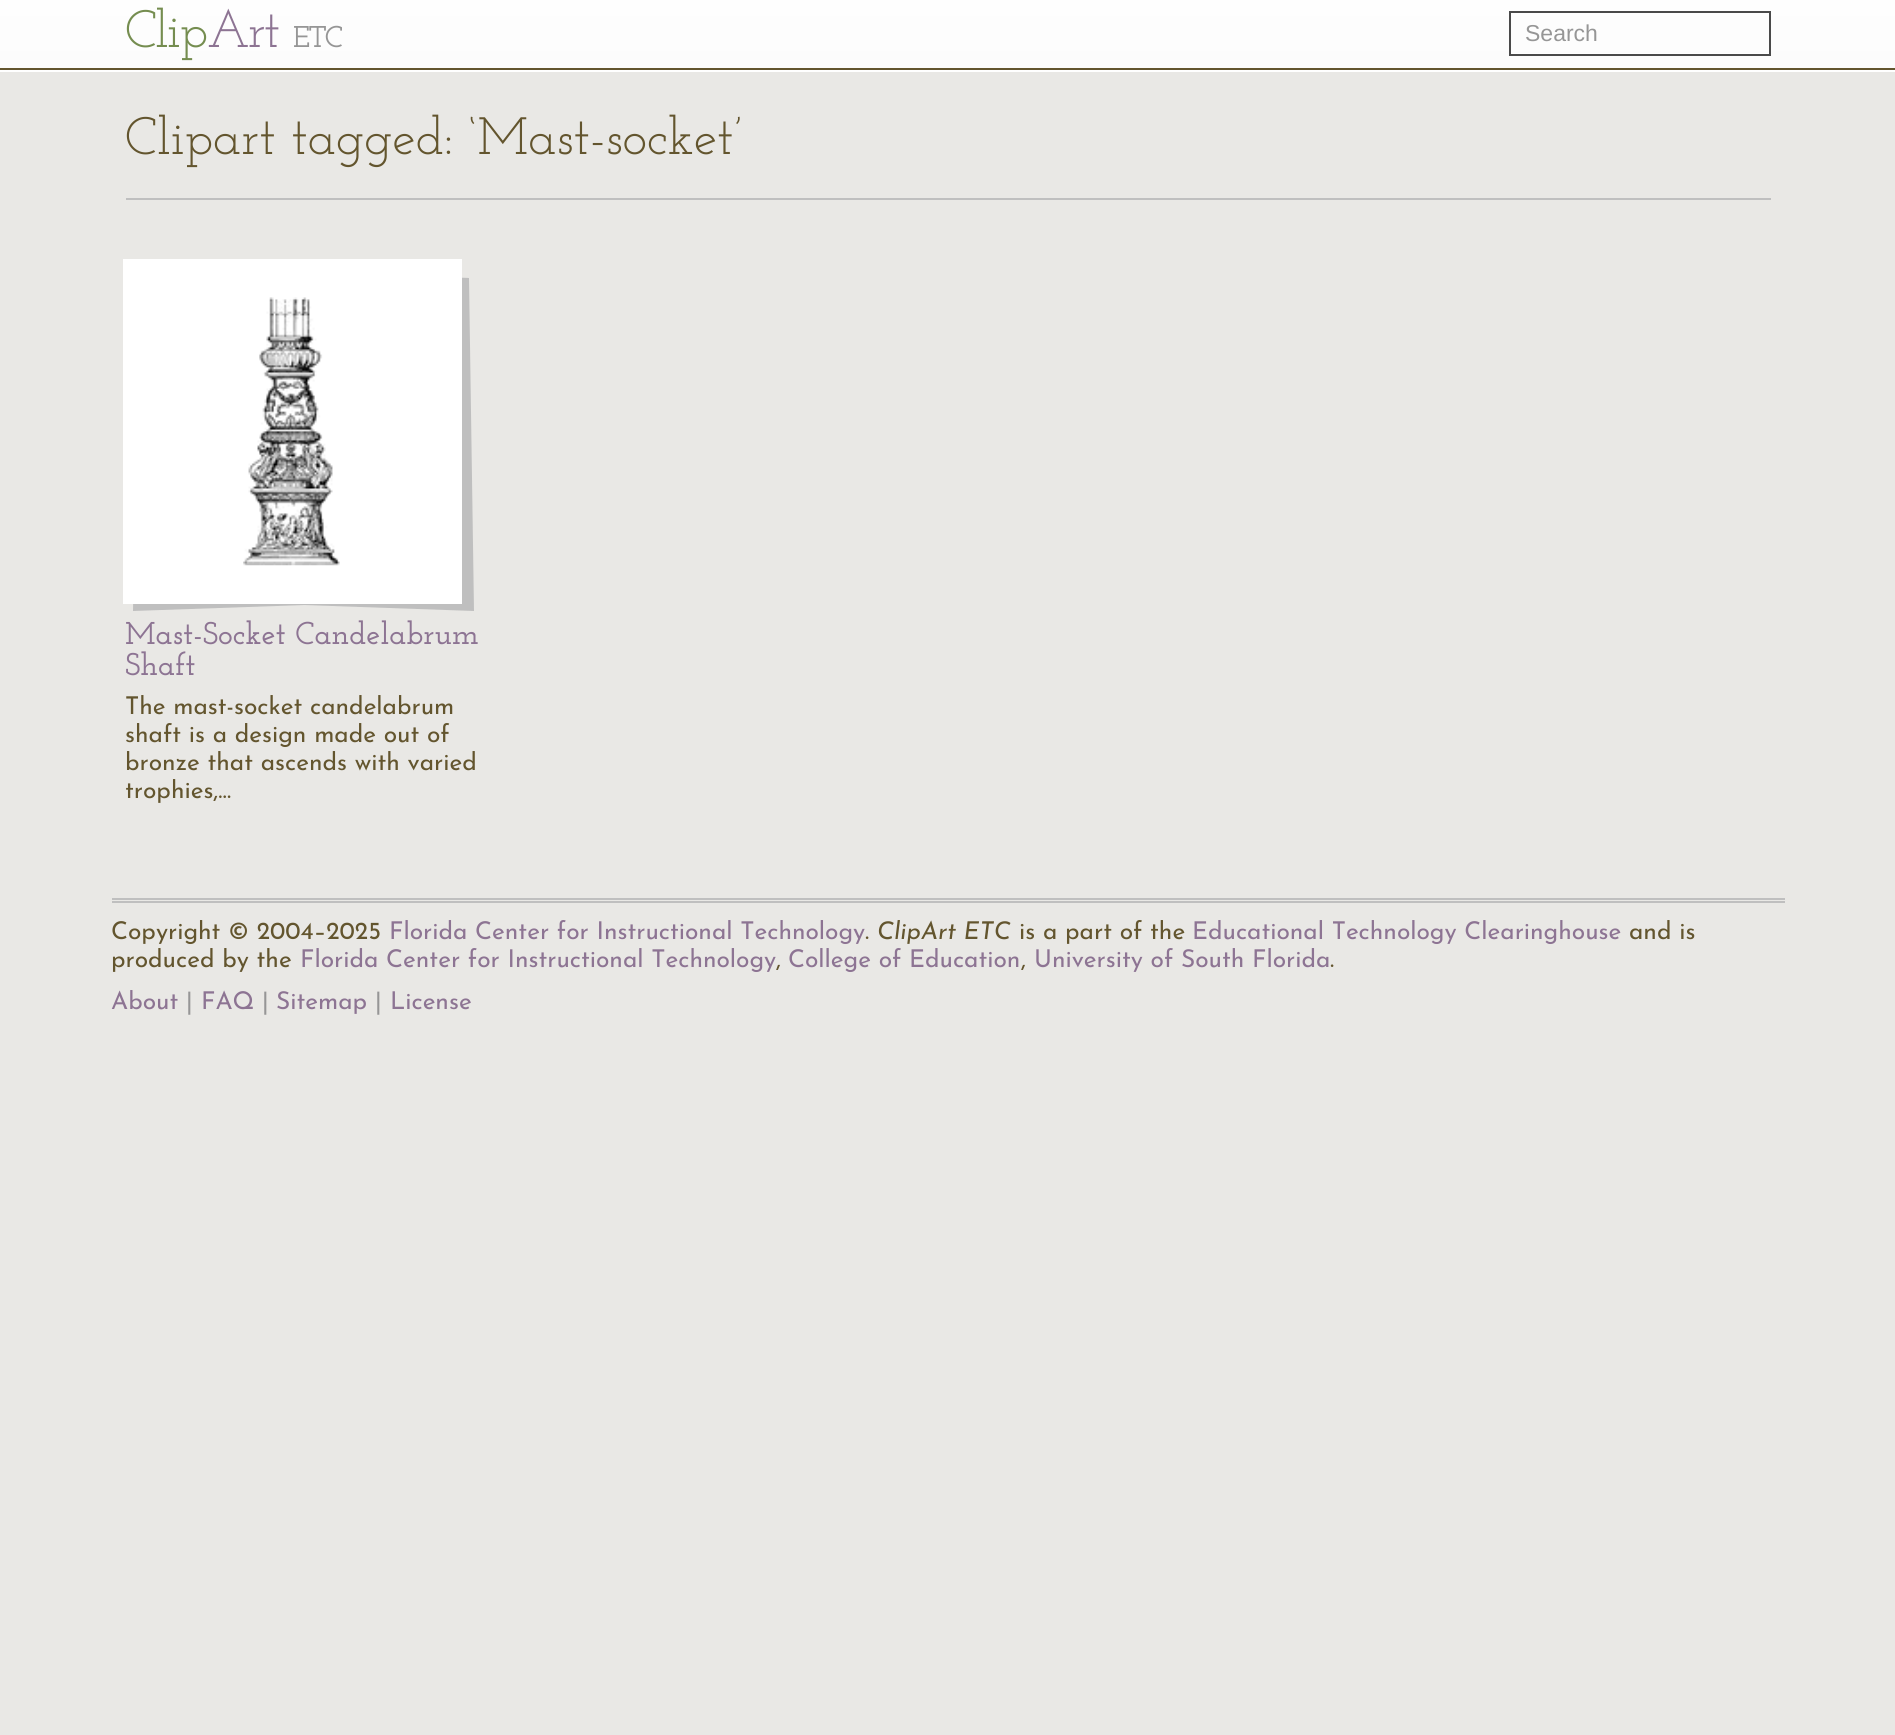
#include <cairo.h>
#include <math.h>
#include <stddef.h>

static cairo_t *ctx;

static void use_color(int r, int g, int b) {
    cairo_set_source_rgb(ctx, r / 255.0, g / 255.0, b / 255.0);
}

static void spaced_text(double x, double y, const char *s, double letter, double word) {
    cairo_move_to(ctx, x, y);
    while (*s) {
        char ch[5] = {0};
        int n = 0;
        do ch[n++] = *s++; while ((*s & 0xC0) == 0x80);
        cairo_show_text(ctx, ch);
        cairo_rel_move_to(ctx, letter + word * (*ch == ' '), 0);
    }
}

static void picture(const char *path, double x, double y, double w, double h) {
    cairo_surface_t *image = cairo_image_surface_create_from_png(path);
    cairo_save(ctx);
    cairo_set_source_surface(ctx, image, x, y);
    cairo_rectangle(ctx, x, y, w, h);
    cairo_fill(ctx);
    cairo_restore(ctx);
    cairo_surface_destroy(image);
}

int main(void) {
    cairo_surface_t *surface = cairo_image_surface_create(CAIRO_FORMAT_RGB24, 1895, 1735);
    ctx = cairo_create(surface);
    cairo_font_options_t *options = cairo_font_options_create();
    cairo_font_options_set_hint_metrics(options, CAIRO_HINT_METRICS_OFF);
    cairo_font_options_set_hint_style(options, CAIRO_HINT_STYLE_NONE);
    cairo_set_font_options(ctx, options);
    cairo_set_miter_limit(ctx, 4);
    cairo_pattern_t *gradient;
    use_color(233, 232, 229);
    cairo_paint(ctx);
    use_color(255, 255, 255);
    cairo_rectangle(ctx, 0, 70, 1895, 2);
    cairo_fill(ctx);
    gradient = cairo_pattern_create_linear(948, 0, 948, 70);
    cairo_pattern_add_color_stop_rgba(gradient, 0, 0.996, 0.996, 0.996, 1);
    cairo_pattern_add_color_stop_rgba(gradient, 1, 0.988, 0.988, 0.988, 1);
    cairo_set_source(ctx, gradient);
    cairo_pattern_destroy(gradient);
    cairo_rectangle(ctx, 0, 0, 1895, 68);
    cairo_fill(ctx);
    use_color(99, 85, 46);
    cairo_rectangle(ctx, 0, 68, 1895, 2);
    cairo_fill(ctx);
    cairo_select_font_face(ctx, "Josefin Slab", CAIRO_FONT_SLANT_NORMAL, CAIRO_FONT_WEIGHT_NORMAL);
    cairo_set_font_size(ctx, 52.5);
    use_color(117, 141, 80);
    spaced_text(125, 47, "Cl", -2, 0);
    spaced_text(167, 47, "ip", -1, 0);
    use_color(141, 116, 147);
    spaced_text(207, 47, "Art", -2, 0);
    cairo_select_font_face(ctx, "Josefin Slab SemiBold", CAIRO_FONT_SLANT_NORMAL, CAIRO_FONT_WEIGHT_NORMAL);
    cairo_set_font_size(ctx, 30);
    use_color(150, 150, 150);
    spaced_text(293, 47, "ETC", -2, 0);
    use_color(255, 255, 255);
    cairo_rectangle(ctx, 1511, 53, 258, 1);
    cairo_fill(ctx);
    cairo_rectangle(ctx, 1510, 12, 260, 43);
    use_color(74, 74, 74);
    cairo_stroke(ctx);
    cairo_select_font_face(ctx, "Liberation Sans", CAIRO_FONT_SLANT_NORMAL, CAIRO_FONT_WEIGHT_NORMAL);
    cairo_set_font_size(ctx, 23);
    use_color(150, 150, 150);
    cairo_move_to(ctx, 1525, 41);
    cairo_show_text(ctx, "Search");
    use_color(191, 191, 191);
    cairo_rectangle(ctx, 126, 198, 1645, 2);
    cairo_fill(ctx);
    cairo_select_font_face(ctx, "Josefin Slab", CAIRO_FONT_SLANT_NORMAL, CAIRO_FONT_WEIGHT_NORMAL);
    cairo_set_font_size(ctx, 52.5);
    use_color(99, 85, 46);
    cairo_move_to(ctx, 125, 154);
    cairo_show_text(ctx, "Clipart tagged: ‘Mast-socket’");
    use_color(191, 191, 191);
    cairo_new_path(ctx);
    cairo_move_to(ctx, 154, 267);
    cairo_line_to(ctx, 469, 278);
    cairo_line_to(ctx, 474, 611);
    cairo_line_to(ctx, 160, 600);
    cairo_close_path(ctx);
    cairo_fill(ctx);
    cairo_new_path(ctx);
    cairo_move_to(ctx, 139, 278);
    cairo_line_to(ctx, 453, 267);
    cairo_line_to(ctx, 448, 600);
    cairo_line_to(ctx, 133, 611);
    cairo_close_path(ctx);
    cairo_fill(ctx);
    cairo_rectangle(ctx, 125, 261, 335, 341);
    use_color(255, 255, 255);
    cairo_set_line_width(ctx, 4);
    cairo_stroke(ctx);
    cairo_rectangle(ctx, 127, 263, 331, 337);
    cairo_fill(ctx);
    picture("img1.png", 243, 297, 97, 269);
    cairo_select_font_face(ctx, "Josefin Slab SemiBold", CAIRO_FONT_SLANT_NORMAL, CAIRO_FONT_WEIGHT_NORMAL);
    cairo_set_font_size(ctx, 31.5);
    use_color(141, 116, 147);
    cairo_move_to(ctx, 125, 644);
    cairo_show_text(ctx, "Mast-Socket Candelabrum");
    cairo_move_to(ctx, 125, 675);
    cairo_show_text(ctx, "Shaft");
    cairo_select_font_face(ctx, "Josefin Sans", CAIRO_FONT_SLANT_NORMAL, CAIRO_FONT_WEIGHT_NORMAL);
    cairo_set_font_size(ctx, 24.5);
    use_color(99, 85, 46);
    cairo_move_to(ctx, 125, 714);
    cairo_show_text(ctx, "The mast-socket candelabrum");
    cairo_move_to(ctx, 125, 742);
    cairo_show_text(ctx, "shaft is a design made out of");
    cairo_move_to(ctx, 125, 770);
    cairo_show_text(ctx, "bronze that ascends with varied");
    cairo_move_to(ctx, 125, 798);
    cairo_show_text(ctx, "trophies,…");
    use_color(191, 191, 191);
    cairo_rectangle(ctx, 112, 898, 1673, 2);
    cairo_fill(ctx);
    cairo_rectangle(ctx, 112, 901, 1673, 2);
    cairo_fill(ctx);
    use_color(99, 85, 46);
    cairo_move_to(ctx, 111, 939);
    cairo_show_text(ctx, "Copyright © 2004–2025");
    use_color(141, 116, 147);
    cairo_move_to(ctx, 389, 939);
    cairo_show_text(ctx, "Florida Center for Instructional Technology");
    use_color(99, 85, 46);
    cairo_move_to(ctx, 865, 939);
    cairo_show_text(ctx, ".");
    cairo_select_font_face(ctx, "Josefin Sans Thin", CAIRO_FONT_SLANT_ITALIC, CAIRO_FONT_WEIGHT_NORMAL);
    cairo_move_to(ctx, 877, 939);
    cairo_show_text(ctx, "ClipArt ETC");
    cairo_select_font_face(ctx, "Josefin Sans", CAIRO_FONT_SLANT_NORMAL, CAIRO_FONT_WEIGHT_NORMAL);
    cairo_move_to(ctx, 1019, 939);
    cairo_show_text(ctx, "is a part of the");
    use_color(141, 116, 147);
    cairo_move_to(ctx, 1192, 939);
    cairo_show_text(ctx, "Educational Technology Clearinghouse");
    use_color(99, 85, 46);
    cairo_move_to(ctx, 1629, 939);
    cairo_show_text(ctx, "and is");
    cairo_move_to(ctx, 111, 967);
    cairo_show_text(ctx, "produced by the");
    use_color(141, 116, 147);
    cairo_move_to(ctx, 300, 967);
    cairo_show_text(ctx, "Florida Center for Instructional Technology");
    use_color(99, 85, 46);
    cairo_move_to(ctx, 776, 967);
    cairo_show_text(ctx, ",");
    use_color(141, 116, 147);
    cairo_move_to(ctx, 788, 967);
    cairo_show_text(ctx, "College of Education");
    use_color(99, 85, 46);
    cairo_move_to(ctx, 1021, 967);
    cairo_show_text(ctx, ",");
    use_color(141, 116, 147);
    cairo_move_to(ctx, 1034, 967);
    cairo_show_text(ctx, "University of South Florida");
    use_color(99, 85, 46);
    cairo_move_to(ctx, 1330, 967);
    cairo_show_text(ctx, ".");
    use_color(141, 116, 147);
    cairo_move_to(ctx, 111, 1009);
    cairo_show_text(ctx, "About");
    use_color(150, 150, 150);
    cairo_move_to(ctx, 186, 1009);
    cairo_show_text(ctx, "|");
    use_color(141, 116, 147);
    cairo_move_to(ctx, 201, 1009);
    cairo_show_text(ctx, "FAQ");
    use_color(150, 150, 150);
    cairo_move_to(ctx, 262, 1009);
    cairo_show_text(ctx, "|");
    use_color(141, 116, 147);
    cairo_move_to(ctx, 276, 1009);
    cairo_show_text(ctx, "Sitemap");
    use_color(150, 150, 150);
    cairo_move_to(ctx, 375, 1009);
    cairo_show_text(ctx, "|");
    use_color(141, 116, 147);
    cairo_move_to(ctx, 390, 1009);
    cairo_show_text(ctx, "License");
    cairo_surface_write_to_png(surface, "result.png");
    cairo_font_options_destroy(options);
    cairo_destroy(ctx);
    cairo_surface_destroy(surface);
    return 0;
}
